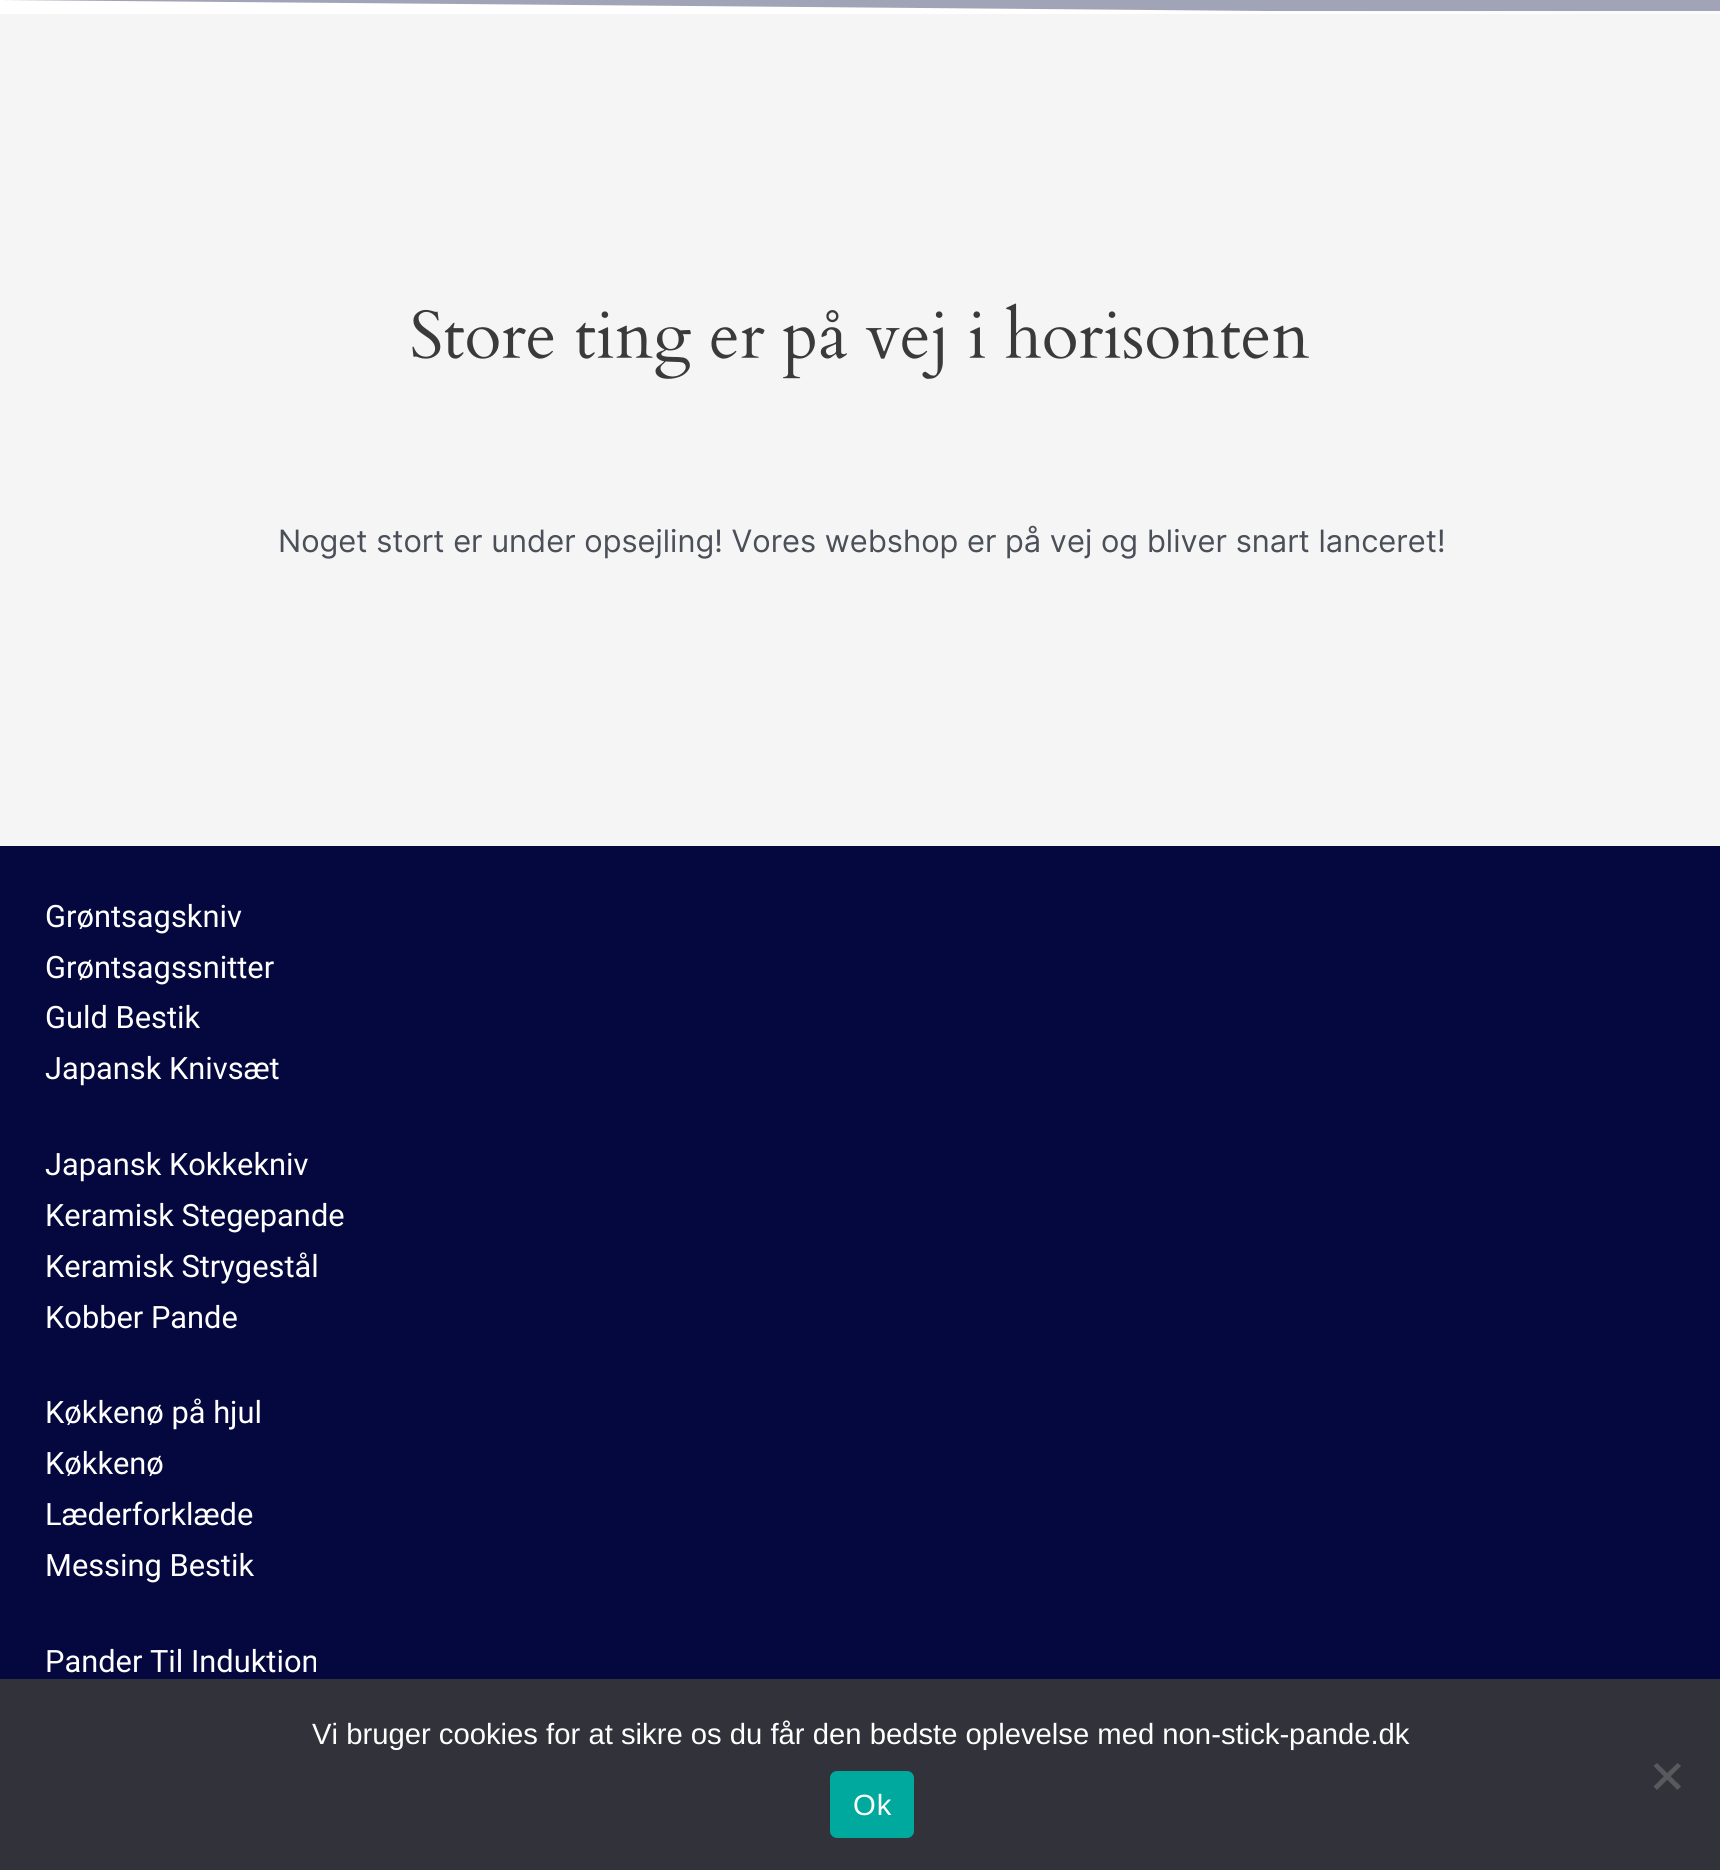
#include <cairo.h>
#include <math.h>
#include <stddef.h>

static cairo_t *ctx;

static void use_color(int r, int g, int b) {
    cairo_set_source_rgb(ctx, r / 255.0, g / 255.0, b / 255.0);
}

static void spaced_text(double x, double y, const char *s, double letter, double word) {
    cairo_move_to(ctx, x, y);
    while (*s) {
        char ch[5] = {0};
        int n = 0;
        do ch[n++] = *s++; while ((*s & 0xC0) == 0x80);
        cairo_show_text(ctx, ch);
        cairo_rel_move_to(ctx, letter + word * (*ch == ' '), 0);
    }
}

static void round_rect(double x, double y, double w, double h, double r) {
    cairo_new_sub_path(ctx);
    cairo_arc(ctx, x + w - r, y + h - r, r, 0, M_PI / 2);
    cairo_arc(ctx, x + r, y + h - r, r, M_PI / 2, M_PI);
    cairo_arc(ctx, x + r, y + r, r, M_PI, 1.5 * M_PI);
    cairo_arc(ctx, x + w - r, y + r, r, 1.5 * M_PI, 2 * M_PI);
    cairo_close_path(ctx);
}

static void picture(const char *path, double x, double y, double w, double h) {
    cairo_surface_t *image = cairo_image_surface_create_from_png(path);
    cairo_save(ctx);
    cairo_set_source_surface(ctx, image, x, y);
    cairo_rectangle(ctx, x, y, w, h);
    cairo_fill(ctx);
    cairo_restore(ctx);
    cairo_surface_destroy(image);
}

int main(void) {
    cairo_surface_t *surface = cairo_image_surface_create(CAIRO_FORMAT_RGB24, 1720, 1870);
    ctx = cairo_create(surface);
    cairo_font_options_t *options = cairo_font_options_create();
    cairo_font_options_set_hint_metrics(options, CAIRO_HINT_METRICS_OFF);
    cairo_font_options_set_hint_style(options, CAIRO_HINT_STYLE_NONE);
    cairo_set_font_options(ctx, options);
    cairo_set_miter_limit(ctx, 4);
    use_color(245, 245, 245);
    cairo_paint(ctx);
    use_color(250, 250, 250);
    cairo_rectangle(ctx, 1269, 11, 451, 3);
    cairo_fill(ctx);
    use_color(130, 132, 159);
    cairo_rectangle(ctx, 4, 0, 1716, 11);
    cairo_fill(ctx);
    cairo_save(ctx);
    cairo_rectangle(ctx, 0, 0, 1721, 14);
    cairo_clip(ctx);
    use_color(255, 255, 255);
    cairo_new_path(ctx);
    cairo_move_to(ctx, 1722, 15);
    cairo_line_to(ctx, -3, 15);
    cairo_line_to(ctx, -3, 0);
    cairo_close_path(ctx);
    cairo_fill(ctx);
    cairo_set_source_rgba(ctx, 1, 1, 1, 0.25);
    cairo_new_path(ctx);
    cairo_move_to(ctx, -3, 15);
    cairo_line_to(ctx, 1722, 15);
    cairo_line_to(ctx, 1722, -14);
    cairo_line_to(ctx, -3, 0);
    cairo_close_path(ctx);
    cairo_fill(ctx);
    cairo_restore(ctx);
    picture("img1.png", 412, 303, 898, 76);
    cairo_select_font_face(ctx, "Inter", CAIRO_FONT_SLANT_NORMAL, CAIRO_FONT_WEIGHT_NORMAL);
    cairo_set_font_size(ctx, 30.8);
    use_color(75, 79, 88);
    cairo_move_to(ctx, 278, 552);
    cairo_show_text(ctx, "Noget stort er under opsejling! Vores webshop er på vej og bliver snart lanceret!");
    use_color(5, 8, 62);
    cairo_rectangle(ctx, 0, 846, 1720, 833);
    cairo_fill(ctx);
    cairo_select_font_face(ctx, "Roboto", CAIRO_FONT_SLANT_NORMAL, CAIRO_FONT_WEIGHT_NORMAL);
    use_color(255, 255, 255);
    cairo_move_to(ctx, 45, 927);
    cairo_show_text(ctx, "Grøntsagskniv");
    cairo_move_to(ctx, 45, 978);
    cairo_show_text(ctx, "Grøntsagssnitter");
    cairo_move_to(ctx, 45, 1028);
    cairo_show_text(ctx, "Guld Bestik");
    cairo_move_to(ctx, 45, 1079);
    cairo_show_text(ctx, "Japansk Knivsæt");
    cairo_move_to(ctx, 45, 1175);
    cairo_show_text(ctx, "Japansk Kokkekniv");
    cairo_move_to(ctx, 45, 1226);
    cairo_show_text(ctx, "Keramisk Stegepande");
    cairo_move_to(ctx, 45, 1277);
    cairo_show_text(ctx, "Keramisk Strygestål");
    cairo_move_to(ctx, 45, 1328);
    cairo_show_text(ctx, "Kobber Pande");
    cairo_move_to(ctx, 45, 1423);
    cairo_show_text(ctx, "Køkkenø på hjul");
    cairo_move_to(ctx, 45, 1474);
    cairo_show_text(ctx, "Køkkenø");
    cairo_move_to(ctx, 45, 1525);
    cairo_show_text(ctx, "Læderforklæde");
    cairo_move_to(ctx, 45, 1576);
    cairo_show_text(ctx, "Messing Bestik");
    cairo_move_to(ctx, 45, 1672);
    cairo_show_text(ctx, "Pander Til Induktion");
    use_color(50, 50, 58);
    cairo_rectangle(ctx, 0, 1679, 1720, 191);
    cairo_fill(ctx);
    cairo_select_font_face(ctx, "Liberation Sans", CAIRO_FONT_SLANT_NORMAL, CAIRO_FONT_WEIGHT_NORMAL);
    cairo_set_font_size(ctx, 29.25);
    use_color(255, 255, 255);
    cairo_move_to(ctx, 312, 1744);
    cairo_show_text(ctx, "Vi bruger cookies for at sikre os du får den bedste oplevelse med non-stick-pande.dk");
    use_color(89, 89, 93);
    cairo_new_path(ctx);
    cairo_move_to(ctx, 1677.5, 1763);
    cairo_line_to(ctx, 1681, 1766);
    cairo_line_to(ctx, 1657, 1790);
    cairo_line_to(ctx, 1653.5, 1786.5);
    cairo_close_path(ctx);
    cairo_fill(ctx);
    cairo_new_path(ctx);
    cairo_move_to(ctx, 1653.5, 1766);
    cairo_line_to(ctx, 1657, 1763);
    cairo_line_to(ctx, 1681, 1786.5);
    cairo_line_to(ctx, 1677.5, 1790);
    cairo_close_path(ctx);
    cairo_fill(ctx);
    use_color(0, 169, 157);
    round_rect(830, 1771, 84, 67, 7);
    cairo_fill(ctx);
    use_color(255, 255, 255);
    spaced_text(853, 1815, "Ok", 1, 0);
    cairo_surface_write_to_png(surface, "result.png");
    cairo_font_options_destroy(options);
    cairo_destroy(ctx);
    cairo_surface_destroy(surface);
    return 0;
}
